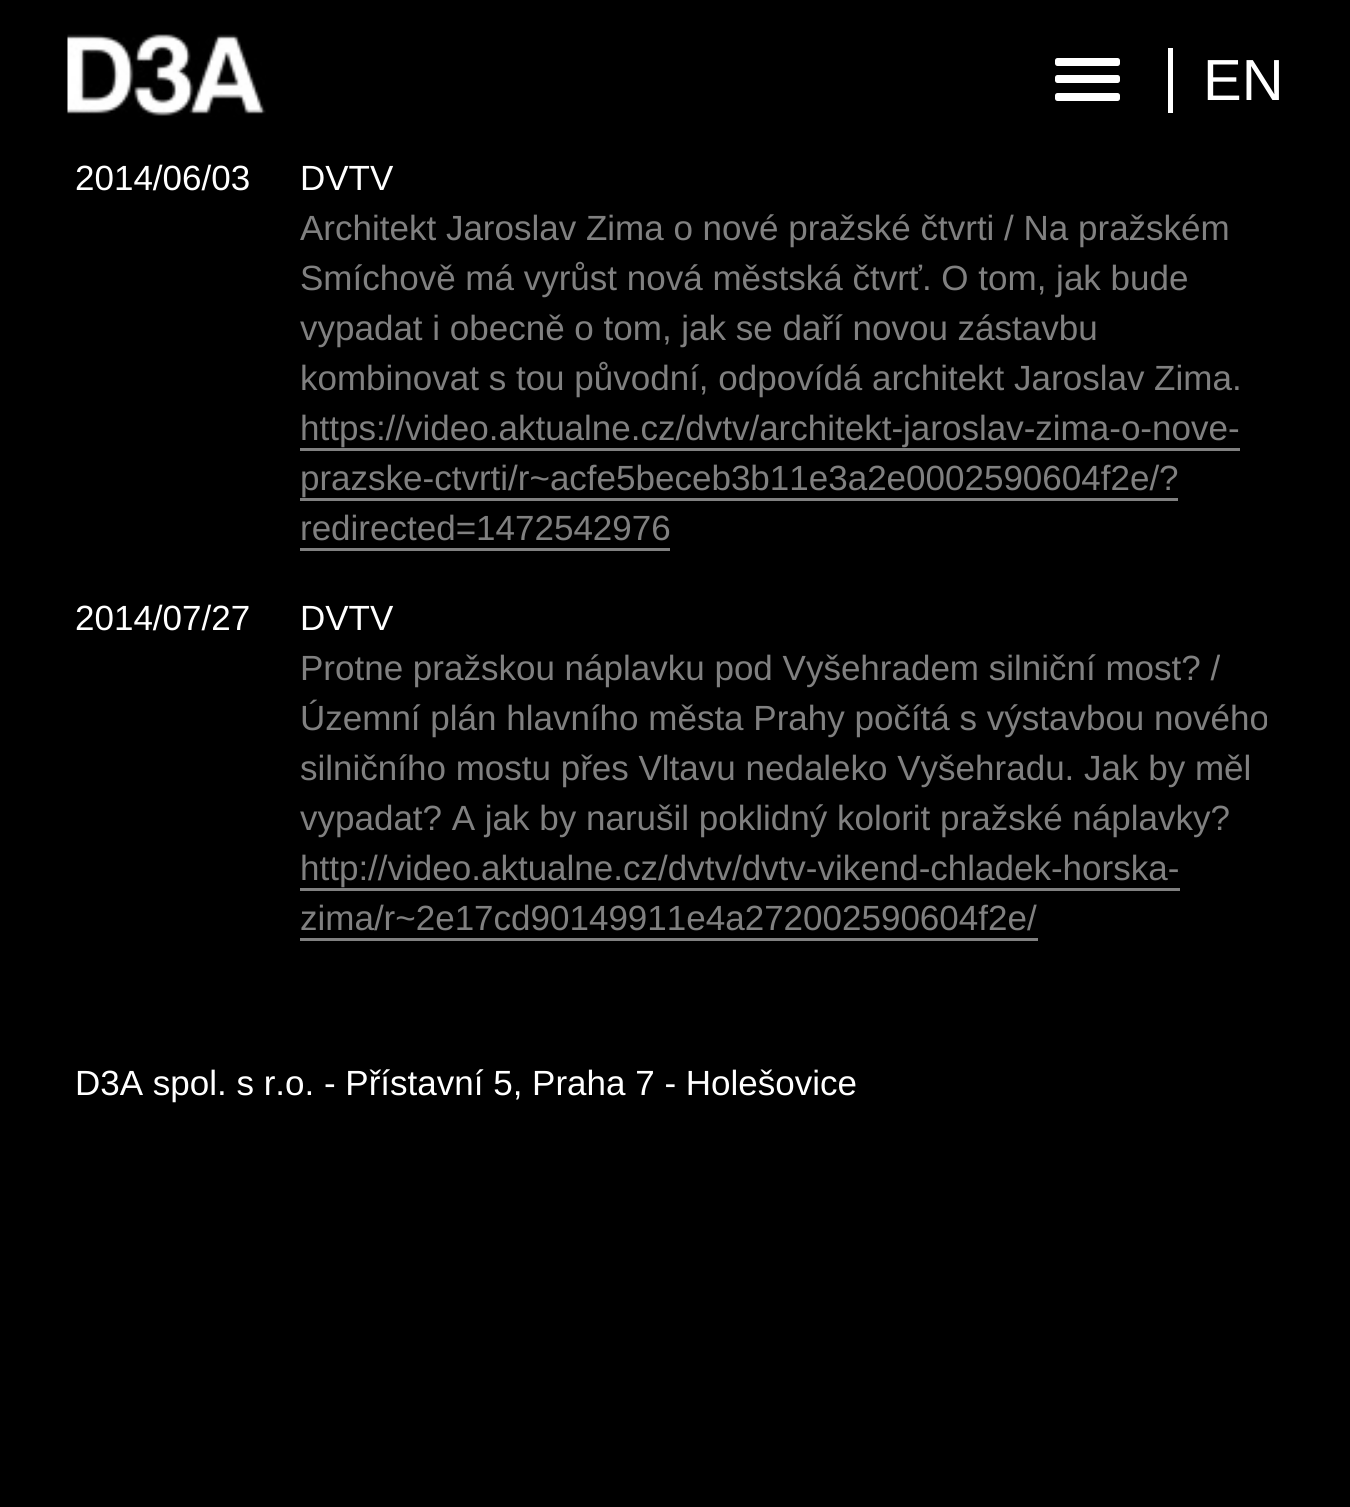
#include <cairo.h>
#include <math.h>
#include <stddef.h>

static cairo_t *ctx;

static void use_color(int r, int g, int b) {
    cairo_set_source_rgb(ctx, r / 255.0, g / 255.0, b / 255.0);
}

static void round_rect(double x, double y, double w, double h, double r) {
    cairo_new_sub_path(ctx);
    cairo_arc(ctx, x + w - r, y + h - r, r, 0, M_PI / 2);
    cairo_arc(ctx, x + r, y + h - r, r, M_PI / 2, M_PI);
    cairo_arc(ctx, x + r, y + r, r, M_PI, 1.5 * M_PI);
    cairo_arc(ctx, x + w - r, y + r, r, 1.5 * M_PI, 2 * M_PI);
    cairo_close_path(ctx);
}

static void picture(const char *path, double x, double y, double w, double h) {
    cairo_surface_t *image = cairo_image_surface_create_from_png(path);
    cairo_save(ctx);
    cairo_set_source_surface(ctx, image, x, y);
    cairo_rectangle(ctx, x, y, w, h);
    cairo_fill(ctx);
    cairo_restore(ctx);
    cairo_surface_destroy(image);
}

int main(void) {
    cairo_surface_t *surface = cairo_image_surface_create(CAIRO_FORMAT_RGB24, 1350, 1507);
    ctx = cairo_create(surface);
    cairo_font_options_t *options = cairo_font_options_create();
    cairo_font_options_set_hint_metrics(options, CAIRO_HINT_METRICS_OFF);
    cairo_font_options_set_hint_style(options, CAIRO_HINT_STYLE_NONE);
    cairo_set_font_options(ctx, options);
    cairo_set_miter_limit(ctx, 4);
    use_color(0, 0, 0);
    cairo_paint(ctx);
    picture("img1.png", 67, 34, 199, 83);
    use_color(255, 255, 255);
    round_rect(1055, 58, 65, 8, 2.5);
    cairo_fill(ctx);
    round_rect(1055, 75, 65, 8, 2.5);
    cairo_fill(ctx);
    round_rect(1055, 93, 65, 8, 2.5);
    cairo_fill(ctx);
    cairo_select_font_face(ctx, "Liberation Sans", CAIRO_FONT_SLANT_NORMAL, CAIRO_FONT_WEIGHT_NORMAL);
    cairo_set_font_size(ctx, 58);
    cairo_move_to(ctx, 1203, 100);
    cairo_show_text(ctx, "EN");
    cairo_rectangle(ctx, 1168, 48, 5, 65);
    cairo_fill(ctx);
    cairo_set_font_size(ctx, 35);
    cairo_move_to(ctx, 75, 190);
    cairo_show_text(ctx, "2014/06/03");
    cairo_move_to(ctx, 300, 190);
    cairo_show_text(ctx, "DVTV");
    use_color(128, 128, 128);
    cairo_move_to(ctx, 300, 240);
    cairo_show_text(ctx, "Architekt Jaroslav Zima o nové pražské čtvrti / Na pražském");
    cairo_move_to(ctx, 300, 290);
    cairo_show_text(ctx, "Smíchově má vyrůst nová městská čtvrť. O tom, jak bude");
    cairo_move_to(ctx, 300, 340);
    cairo_show_text(ctx, "vypadat i obecně o tom, jak se daří novou zástavbu");
    cairo_move_to(ctx, 300, 390);
    cairo_show_text(ctx, "kombinovat s tou původní, odpovídá architekt Jaroslav Zima.");
    cairo_move_to(ctx, 300, 440);
    cairo_show_text(ctx, "https://video.aktualne.cz/dvtv/architekt-jaroslav-zima-o-nove-");
    cairo_rectangle(ctx, 300, 448, 940, 3);
    cairo_fill(ctx);
    cairo_move_to(ctx, 300, 490);
    cairo_show_text(ctx, "prazske-ctvrti/r~acfe5beceb3b11e3a2e0002590604f2e/?");
    cairo_rectangle(ctx, 300, 498, 878, 3);
    cairo_fill(ctx);
    cairo_move_to(ctx, 300, 540);
    cairo_show_text(ctx, "redirected=1472542976");
    cairo_rectangle(ctx, 300, 548, 370, 3);
    cairo_fill(ctx);
    use_color(255, 255, 255);
    cairo_move_to(ctx, 75, 630);
    cairo_show_text(ctx, "2014/07/27");
    cairo_move_to(ctx, 300, 630);
    cairo_show_text(ctx, "DVTV");
    use_color(128, 128, 128);
    cairo_move_to(ctx, 300, 680);
    cairo_show_text(ctx, "Protne pražskou náplavku pod Vyšehradem silniční most? /");
    cairo_move_to(ctx, 300, 730);
    cairo_show_text(ctx, "Územní plán hlavního města Prahy počítá s výstavbou nového");
    cairo_move_to(ctx, 300, 780);
    cairo_show_text(ctx, "silničního mostu přes Vltavu nedaleko Vyšehradu. Jak by měl");
    cairo_move_to(ctx, 300, 830);
    cairo_show_text(ctx, "vypadat? A jak by narušil poklidný kolorit pražské náplavky?");
    cairo_move_to(ctx, 300, 880);
    cairo_show_text(ctx, "http://video.aktualne.cz/dvtv/dvtv-vikend-chladek-horska-");
    cairo_rectangle(ctx, 300, 888, 880, 3);
    cairo_fill(ctx);
    cairo_move_to(ctx, 300, 930);
    cairo_show_text(ctx, "zima/r~2e17cd90149911e4a272002590604f2e/");
    cairo_rectangle(ctx, 300, 938, 738, 3);
    cairo_fill(ctx);
    use_color(255, 255, 255);
    cairo_move_to(ctx, 75, 1095);
    cairo_show_text(ctx, "D3A spol. s r.o. - Přístavní 5, Praha 7 - Holešovice");
    cairo_surface_write_to_png(surface, "result.png");
    cairo_font_options_destroy(options);
    cairo_destroy(ctx);
    cairo_surface_destroy(surface);
    return 0;
}
